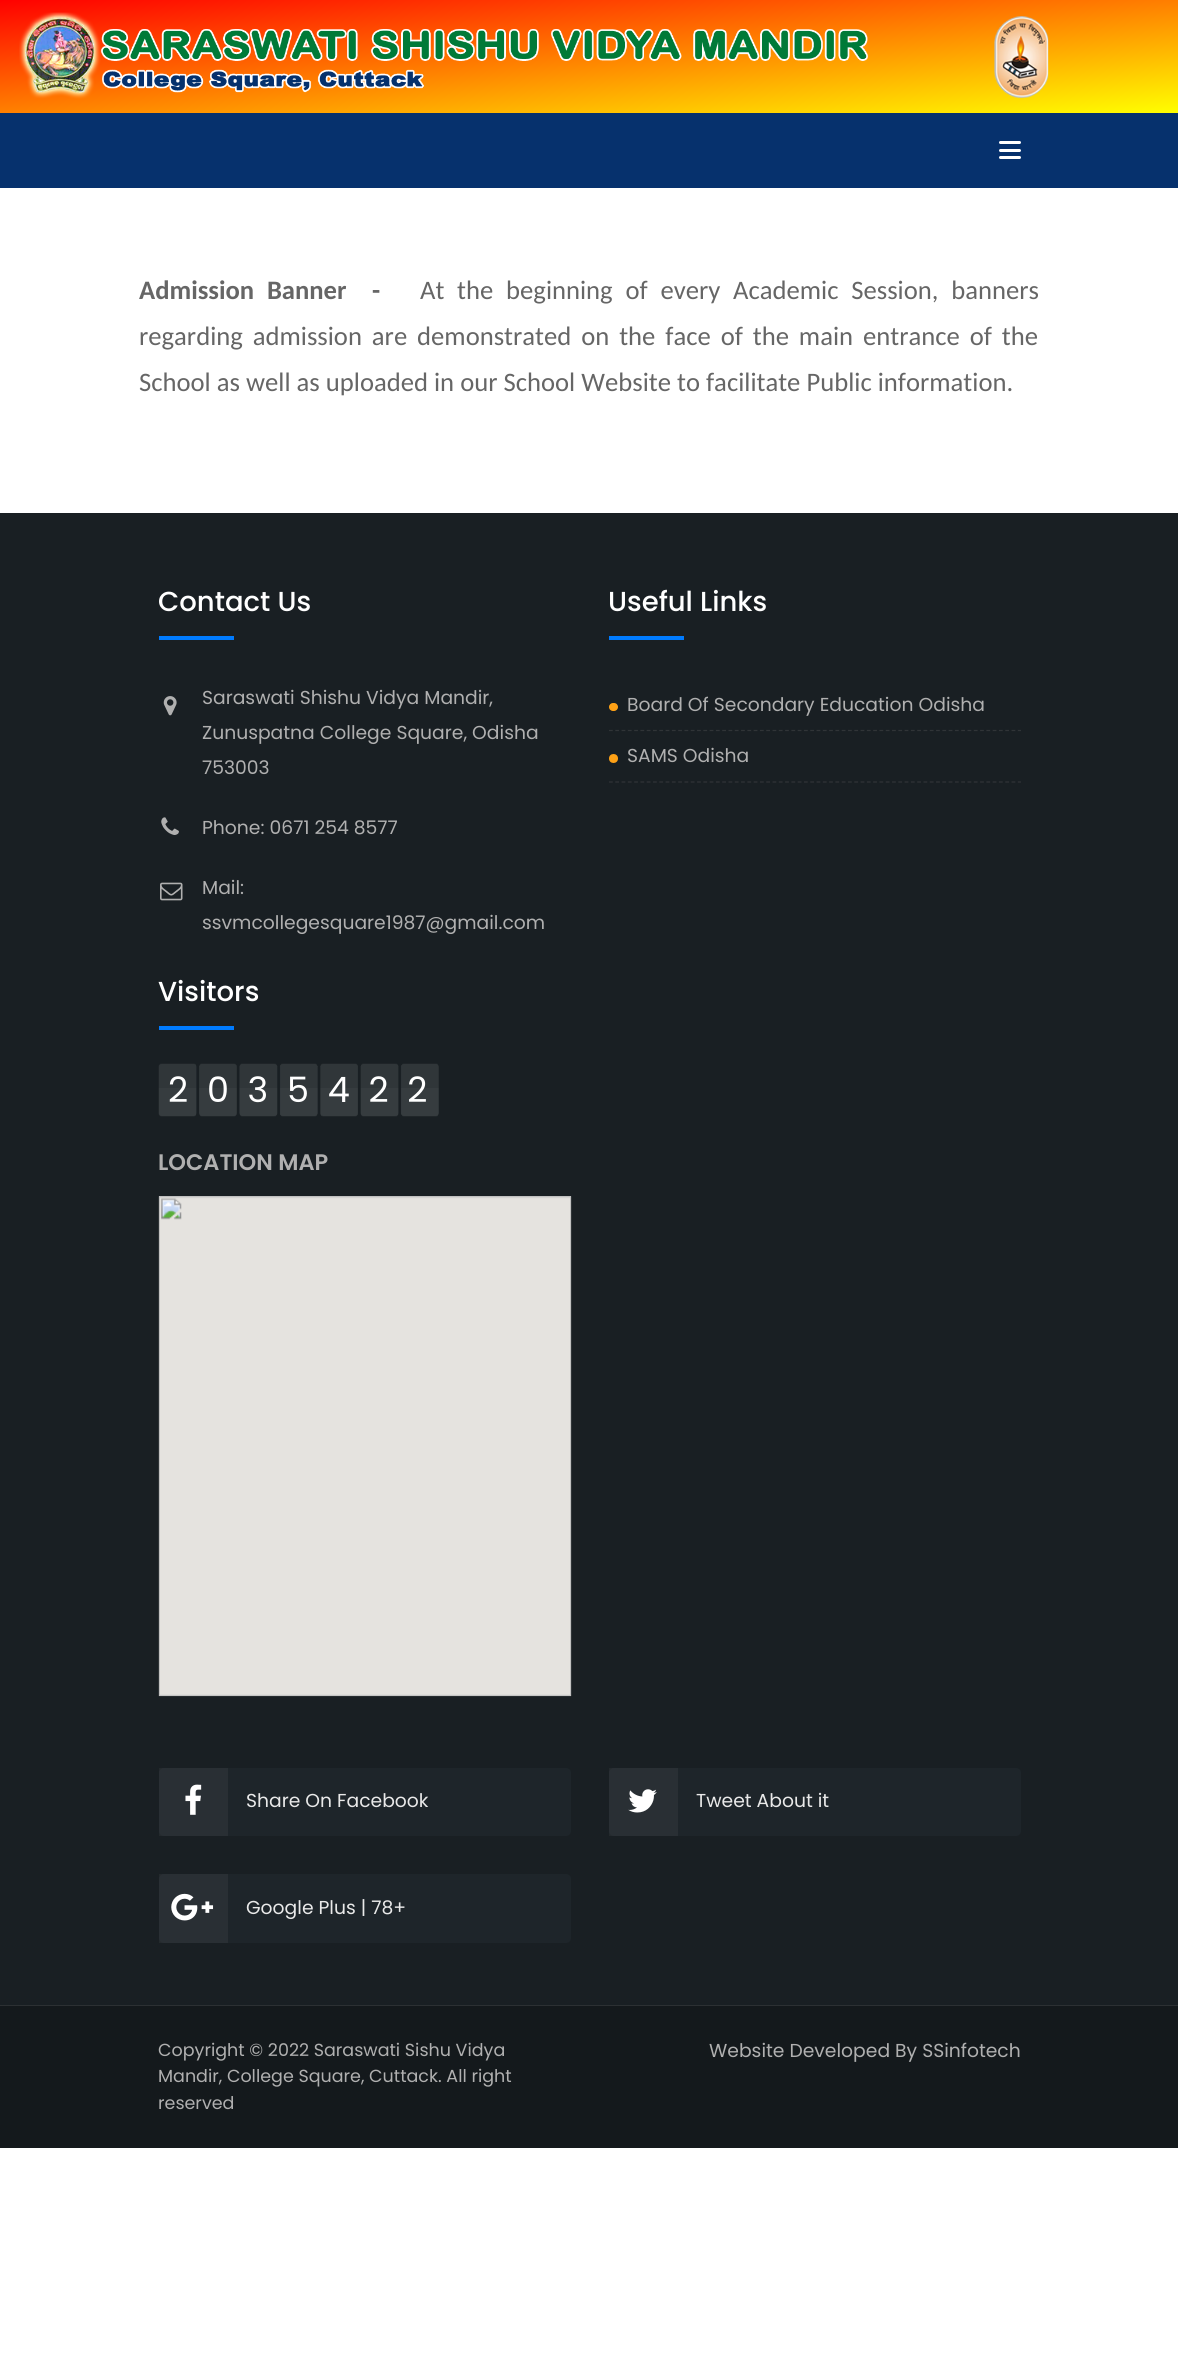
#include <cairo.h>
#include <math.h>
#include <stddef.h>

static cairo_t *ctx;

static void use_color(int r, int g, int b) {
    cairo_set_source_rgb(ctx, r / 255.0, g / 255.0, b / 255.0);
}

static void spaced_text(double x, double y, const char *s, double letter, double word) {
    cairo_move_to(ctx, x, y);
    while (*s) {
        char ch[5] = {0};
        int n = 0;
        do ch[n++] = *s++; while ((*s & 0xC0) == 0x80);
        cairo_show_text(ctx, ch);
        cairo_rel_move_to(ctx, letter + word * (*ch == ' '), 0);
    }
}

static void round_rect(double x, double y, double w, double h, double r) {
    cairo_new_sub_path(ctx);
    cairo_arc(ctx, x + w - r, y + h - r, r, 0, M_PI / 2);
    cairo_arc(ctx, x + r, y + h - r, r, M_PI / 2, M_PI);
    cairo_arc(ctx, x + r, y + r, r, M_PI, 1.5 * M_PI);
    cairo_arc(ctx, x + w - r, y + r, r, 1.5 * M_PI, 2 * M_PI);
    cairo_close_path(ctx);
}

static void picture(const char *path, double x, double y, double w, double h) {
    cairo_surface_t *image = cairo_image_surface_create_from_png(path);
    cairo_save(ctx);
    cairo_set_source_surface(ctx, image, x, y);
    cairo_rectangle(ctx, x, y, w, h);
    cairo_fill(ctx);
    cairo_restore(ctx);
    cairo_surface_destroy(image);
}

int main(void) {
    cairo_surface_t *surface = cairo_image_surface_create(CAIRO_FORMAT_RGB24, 1178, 2376);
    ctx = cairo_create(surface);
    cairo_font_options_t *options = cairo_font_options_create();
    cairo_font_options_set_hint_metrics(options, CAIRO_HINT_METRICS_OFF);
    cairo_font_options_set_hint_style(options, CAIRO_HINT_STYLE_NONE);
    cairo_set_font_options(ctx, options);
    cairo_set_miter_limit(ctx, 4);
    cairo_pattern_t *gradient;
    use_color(255, 255, 255);
    cairo_paint(ctx);
    gradient = cairo_pattern_create_linear(579, -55, 600, 168);
    cairo_pattern_add_color_stop_rgba(gradient, 0, 1, 0, 0, 1);
    cairo_pattern_add_color_stop_rgba(gradient, 1, 1, 1, 0, 1);
    cairo_set_source(ctx, gradient);
    cairo_pattern_destroy(gradient);
    cairo_rectangle(ctx, 0, 0, 1178, 113);
    cairo_fill(ctx);
    picture("img1.png", 19, 12, 1030, 87);
    use_color(6, 49, 109);
    cairo_rectangle(ctx, 0, 113, 1178, 75);
    cairo_fill(ctx);
    use_color(255, 255, 255);
    round_rect(999, 141, 22, 3, 1.5);
    cairo_fill(ctx);
    round_rect(999, 149, 22, 3, 1.5);
    cairo_fill(ctx);
    round_rect(999, 156, 22, 3, 1.5);
    cairo_fill(ctx);
    cairo_select_font_face(ctx, "Carlito", CAIRO_FONT_SLANT_NORMAL, CAIRO_FONT_WEIGHT_BOLD);
    cairo_set_font_size(ctx, 26.65);
    use_color(102, 102, 102);
    spaced_text(139, 299, "Admission Banner  -", 0, 6.75);
    cairo_select_font_face(ctx, "Carlito", CAIRO_FONT_SLANT_NORMAL, CAIRO_FONT_WEIGHT_NORMAL);
    spaced_text(420, 299, "At the beginning of every Academic Session, banners", 0, 6.75);
    spaced_text(139, 345, "regarding admission are demonstrated on the face of the main entrance of the", 0, 3.9);
    cairo_move_to(ctx, 139, 391);
    cairo_show_text(ctx, "School as well as uploaded in our School Website to facilitate Public information.");
    use_color(25, 31, 35);
    cairo_rectangle(ctx, 0, 513, 1178, 1492);
    cairo_fill(ctx);
    cairo_select_font_face(ctx, "Poppins Medium", CAIRO_FONT_SLANT_NORMAL, CAIRO_FONT_WEIGHT_NORMAL);
    cairo_set_font_size(ctx, 27.5);
    use_color(255, 255, 255);
    cairo_move_to(ctx, 158, 611);
    cairo_show_text(ctx, "Contact Us");
    use_color(0, 123, 255);
    cairo_rectangle(ctx, 159, 636, 75, 4);
    cairo_fill(ctx);
    picture("img2.png", 163, 696, 14, 20);
    cairo_select_font_face(ctx, "Poppins", CAIRO_FONT_SLANT_NORMAL, CAIRO_FONT_WEIGHT_NORMAL);
    cairo_set_font_size(ctx, 18.75);
    use_color(176, 176, 176);
    cairo_move_to(ctx, 202, 704);
    cairo_show_text(ctx, "Saraswati Shishu Vidya Mandir,");
    cairo_move_to(ctx, 202, 739);
    cairo_show_text(ctx, "Zunuspatna College Square, Odisha");
    cairo_move_to(ctx, 202, 774);
    cairo_show_text(ctx, "753003");
    picture("img3.png", 161, 817, 18, 18);
    cairo_move_to(ctx, 202, 834);
    cairo_show_text(ctx, "Phone: 0671 254 8577");
    picture("img4.png", 160, 882, 23, 19);
    cairo_move_to(ctx, 202, 894);
    cairo_show_text(ctx, "Mail:");
    cairo_move_to(ctx, 202, 929);
    cairo_show_text(ctx, "ssvmcollegesquare1987@gmail.com");
    cairo_select_font_face(ctx, "Poppins Medium", CAIRO_FONT_SLANT_NORMAL, CAIRO_FONT_WEIGHT_NORMAL);
    cairo_set_font_size(ctx, 27.5);
    use_color(255, 255, 255);
    cairo_move_to(ctx, 608, 611);
    cairo_show_text(ctx, "Useful Links");
    use_color(0, 123, 255);
    cairo_rectangle(ctx, 609, 636, 75, 4);
    cairo_fill(ctx);
    cairo_new_path(ctx);
    cairo_move_to(ctx, 609, 730.5);
    cairo_line_to(ctx, 1021, 730.5);
    use_color(48, 52, 55);
    cairo_set_line_width(ctx, 1.2);
    cairo_set_dash(ctx, (double[]){3.75, 2.54}, 2, 0);
    cairo_stroke(ctx);
    use_color(254, 161, 22);
    round_rect(609, 703, 9, 8, 4);
    cairo_fill(ctx);
    cairo_select_font_face(ctx, "Poppins", CAIRO_FONT_SLANT_NORMAL, CAIRO_FONT_WEIGHT_NORMAL);
    cairo_set_font_size(ctx, 18.75);
    use_color(176, 176, 176);
    cairo_move_to(ctx, 627, 711);
    cairo_show_text(ctx, "Board Of Secondary Education Odisha");
    cairo_new_path(ctx);
    cairo_move_to(ctx, 609, 782);
    cairo_line_to(ctx, 1021, 782);
    use_color(48, 52, 55);
    cairo_stroke(ctx);
    use_color(254, 161, 22);
    cairo_arc(ctx, 613.5, 758.5, 4.5, 0, 2 * M_PI);
    cairo_fill(ctx);
    use_color(176, 176, 176);
    cairo_move_to(ctx, 627, 762);
    cairo_show_text(ctx, "SAMS Odisha");
    cairo_select_font_face(ctx, "Poppins Medium", CAIRO_FONT_SLANT_NORMAL, CAIRO_FONT_WEIGHT_NORMAL);
    cairo_set_font_size(ctx, 27.5);
    use_color(255, 255, 255);
    cairo_move_to(ctx, 158, 1001);
    cairo_show_text(ctx, "Visitors");
    use_color(0, 123, 255);
    cairo_rectangle(ctx, 159, 1026, 75, 4);
    cairo_fill(ctx);
    picture("img5.png", 158, 1063, 281, 54);
    cairo_select_font_face(ctx, "Poppins", CAIRO_FONT_SLANT_NORMAL, CAIRO_FONT_WEIGHT_NORMAL);
    cairo_set_font_size(ctx, 35);
    use_color(255, 255, 255);
    spaced_text(168, 1102, "2035422", 18.75, 0);
    cairo_select_font_face(ctx, "Poppins SemiBold", CAIRO_FONT_SLANT_NORMAL, CAIRO_FONT_WEIGHT_NORMAL);
    cairo_set_font_size(ctx, 22.5);
    use_color(176, 176, 176);
    cairo_move_to(ctx, 158, 1170);
    cairo_show_text(ctx, "LOCATION MAP");
    picture("img6.png", 158, 1196, 414, 501);
    use_color(30, 37, 42);
    round_rect(159, 1768, 412, 68, 5);
    cairo_fill(ctx);
    cairo_set_source_rgba(ctx, 1, 1, 1, 0.05);
    cairo_rectangle(ctx, 159, 1768, 69, 68);
    cairo_fill(ctx);
    picture("img7.png", 185, 1784, 17, 31);
    cairo_select_font_face(ctx, "Poppins", CAIRO_FONT_SLANT_NORMAL, CAIRO_FONT_WEIGHT_NORMAL);
    cairo_set_font_size(ctx, 18.75);
    use_color(233, 233, 233);
    cairo_move_to(ctx, 246, 1807);
    cairo_show_text(ctx, "Share On Facebook");
    use_color(30, 37, 42);
    round_rect(609, 1768, 412, 68, 5);
    cairo_fill(ctx);
    cairo_set_source_rgba(ctx, 1, 1, 1, 0.05);
    cairo_rectangle(ctx, 609, 1768, 69, 68);
    cairo_fill(ctx);
    picture("img8.png", 628, 1789, 29, 24);
    use_color(233, 233, 233);
    cairo_move_to(ctx, 696, 1807);
    cairo_show_text(ctx, "Tweet About it");
    use_color(30, 37, 42);
    round_rect(159, 1874, 412, 69, 5);
    cairo_fill(ctx);
    cairo_set_source_rgba(ctx, 1, 1, 1, 0.05);
    cairo_rectangle(ctx, 159, 1874, 69, 69);
    cairo_fill(ctx);
    picture("img9.png", 171, 1893, 43, 28);
    use_color(233, 233, 233);
    cairo_move_to(ctx, 246, 1914);
    cairo_show_text(ctx, "Google Plus | 78+");
    use_color(20, 25, 28);
    cairo_rectangle(ctx, 0, 2006, 1178, 142);
    cairo_fill(ctx);
    use_color(44, 48, 51);
    cairo_rectangle(ctx, 0, 2005, 1178, 1);
    cairo_fill(ctx);
    cairo_set_font_size(ctx, 17.5);
    use_color(176, 176, 176);
    cairo_move_to(ctx, 158, 2056);
    cairo_show_text(ctx, "Copyright © 2022 Saraswati Sishu Vidya");
    cairo_move_to(ctx, 158, 2082);
    cairo_show_text(ctx, "Mandir, College Square, Cuttack. All right");
    cairo_move_to(ctx, 158, 2109);
    cairo_show_text(ctx, "reserved");
    cairo_set_font_size(ctx, 18.75);
    cairo_move_to(ctx, 709, 2057);
    cairo_show_text(ctx, "Website Developed By SSinfotech");
    cairo_surface_write_to_png(surface, "result.png");
    cairo_font_options_destroy(options);
    cairo_destroy(ctx);
    cairo_surface_destroy(surface);
    return 0;
}
